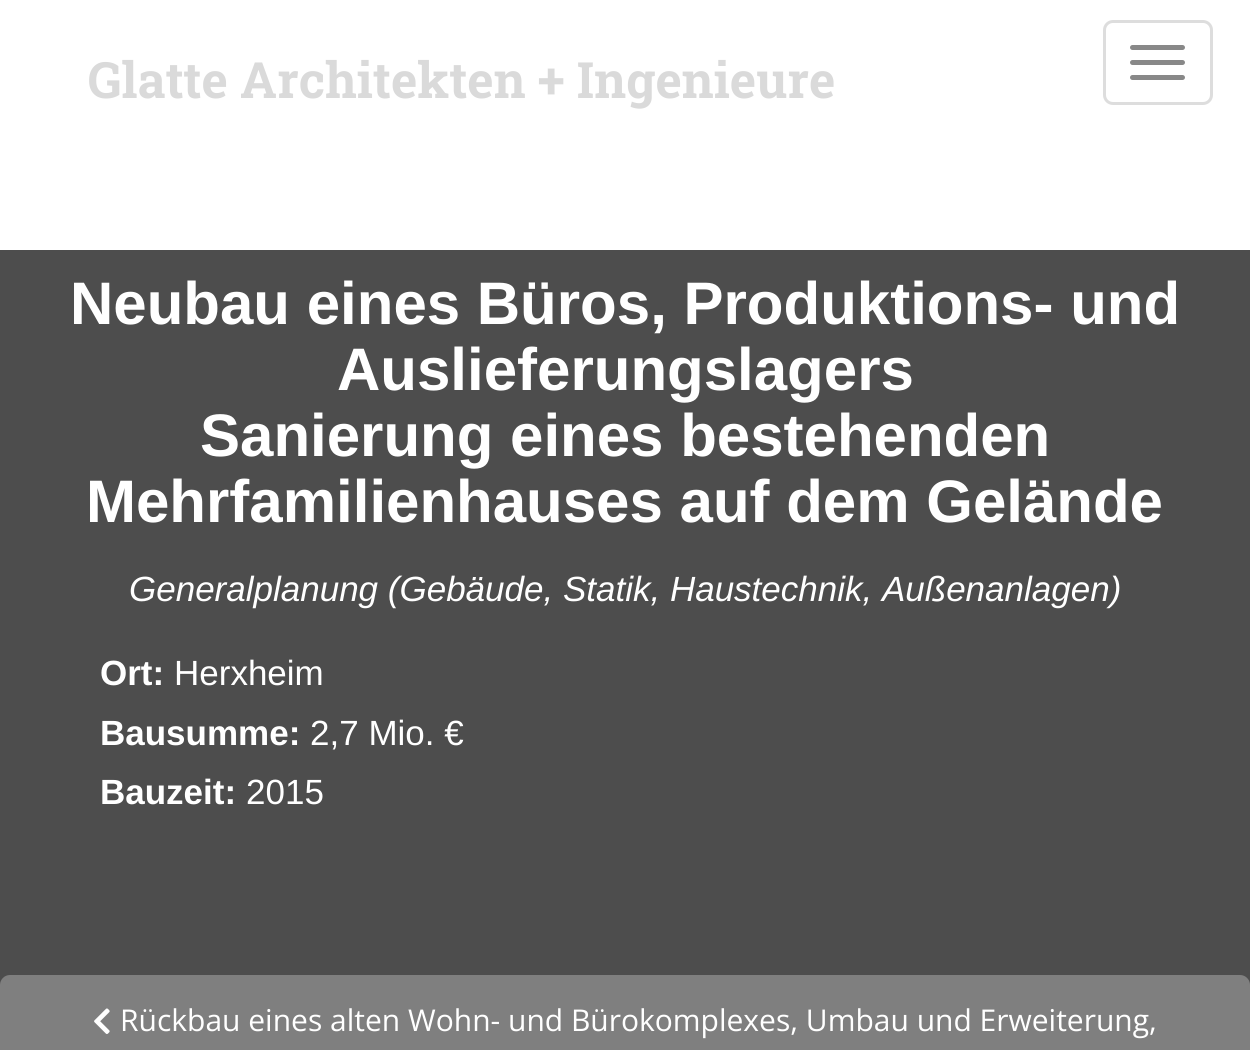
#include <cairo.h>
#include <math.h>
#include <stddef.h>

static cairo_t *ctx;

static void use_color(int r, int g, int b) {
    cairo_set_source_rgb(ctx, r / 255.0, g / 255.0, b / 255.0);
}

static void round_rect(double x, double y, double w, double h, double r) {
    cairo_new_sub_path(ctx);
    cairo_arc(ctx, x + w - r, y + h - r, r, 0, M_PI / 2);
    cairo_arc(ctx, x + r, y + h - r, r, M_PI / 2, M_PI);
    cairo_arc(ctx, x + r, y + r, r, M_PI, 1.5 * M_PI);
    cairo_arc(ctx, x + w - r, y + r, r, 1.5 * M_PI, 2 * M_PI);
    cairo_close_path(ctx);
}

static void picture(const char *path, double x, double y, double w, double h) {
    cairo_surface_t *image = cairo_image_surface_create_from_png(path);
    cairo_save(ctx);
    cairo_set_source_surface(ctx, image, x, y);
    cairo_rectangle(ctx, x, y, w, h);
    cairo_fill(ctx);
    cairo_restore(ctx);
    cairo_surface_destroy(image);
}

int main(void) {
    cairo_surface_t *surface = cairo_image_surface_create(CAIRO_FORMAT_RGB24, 1250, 1050);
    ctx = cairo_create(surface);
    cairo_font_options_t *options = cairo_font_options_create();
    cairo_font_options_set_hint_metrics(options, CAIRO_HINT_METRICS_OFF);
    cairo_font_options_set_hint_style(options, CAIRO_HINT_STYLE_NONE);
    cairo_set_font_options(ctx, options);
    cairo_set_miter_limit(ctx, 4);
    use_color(77, 77, 77);
    cairo_paint(ctx);
    use_color(255, 255, 255);
    cairo_rectangle(ctx, 0, 0, 1250, 250);
    cairo_fill(ctx);
    cairo_select_font_face(ctx, "Roboto Slab", CAIRO_FONT_SLANT_NORMAL, CAIRO_FONT_WEIGHT_BOLD);
    cairo_set_font_size(ctx, 50);
    use_color(218, 218, 218);
    cairo_move_to(ctx, 88, 98);
    cairo_show_text(ctx, "Glatte Architekten + Ingenieure");
    round_rect(1104.5, 21.5, 107, 82, 8.5);
    use_color(221, 221, 221);
    cairo_set_line_width(ctx, 3);
    cairo_stroke(ctx);
    use_color(136, 136, 136);
    round_rect(1130, 45, 55, 5, 2.5);
    cairo_fill(ctx);
    round_rect(1130, 60, 55, 5, 2.5);
    cairo_fill(ctx);
    round_rect(1130, 75, 55, 5, 2.5);
    cairo_fill(ctx);
    cairo_select_font_face(ctx, "Liberation Sans", CAIRO_FONT_SLANT_NORMAL, CAIRO_FONT_WEIGHT_BOLD);
    cairo_set_font_size(ctx, 60);
    use_color(255, 255, 255);
    cairo_move_to(ctx, 70, 324);
    cairo_show_text(ctx, "Neubau eines Büros, Produktions- und");
    cairo_move_to(ctx, 337, 390);
    cairo_show_text(ctx, "Auslieferungslagers");
    cairo_move_to(ctx, 200, 456);
    cairo_show_text(ctx, "Sanierung eines bestehenden");
    cairo_move_to(ctx, 86, 522);
    cairo_show_text(ctx, "Mehrfamilienhauses auf dem Gelände");
    cairo_select_font_face(ctx, "Liberation Sans", CAIRO_FONT_SLANT_ITALIC, CAIRO_FONT_WEIGHT_NORMAL);
    cairo_set_font_size(ctx, 35);
    cairo_move_to(ctx, 129, 601);
    cairo_show_text(ctx, "Generalplanung (Gebäude, Statik, Haustechnik, Außenanlagen)");
    cairo_select_font_face(ctx, "Liberation Sans", CAIRO_FONT_SLANT_NORMAL, CAIRO_FONT_WEIGHT_BOLD);
    cairo_move_to(ctx, 100, 685);
    cairo_show_text(ctx, "Ort:");
    cairo_select_font_face(ctx, "Liberation Sans", CAIRO_FONT_SLANT_NORMAL, CAIRO_FONT_WEIGHT_NORMAL);
    cairo_move_to(ctx, 174, 685);
    cairo_show_text(ctx, "Herxheim");
    cairo_select_font_face(ctx, "Liberation Sans", CAIRO_FONT_SLANT_NORMAL, CAIRO_FONT_WEIGHT_BOLD);
    cairo_move_to(ctx, 100, 745);
    cairo_show_text(ctx, "Bausumme:");
    cairo_select_font_face(ctx, "Liberation Sans", CAIRO_FONT_SLANT_NORMAL, CAIRO_FONT_WEIGHT_NORMAL);
    cairo_move_to(ctx, 310, 745);
    cairo_show_text(ctx, "2,7 Mio. €");
    cairo_select_font_face(ctx, "Liberation Sans", CAIRO_FONT_SLANT_NORMAL, CAIRO_FONT_WEIGHT_BOLD);
    cairo_move_to(ctx, 100, 804);
    cairo_show_text(ctx, "Bauzeit:");
    cairo_select_font_face(ctx, "Liberation Sans", CAIRO_FONT_SLANT_NORMAL, CAIRO_FONT_WEIGHT_NORMAL);
    cairo_move_to(ctx, 246, 804);
    cairo_show_text(ctx, "2015");
    use_color(127, 127, 127);
    round_rect(1.5, 976.5, 1247, 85, 8.5);
    cairo_fill_preserve(ctx);
    cairo_stroke(ctx);
    picture("img1.png", 94, 1008, 16, 26);
    cairo_select_font_face(ctx, "Open Sans", CAIRO_FONT_SLANT_NORMAL, CAIRO_FONT_WEIGHT_NORMAL);
    cairo_set_font_size(ctx, 30);
    use_color(255, 255, 255);
    cairo_move_to(ctx, 120, 1031);
    cairo_show_text(ctx, "Rückbau eines alten Wohn- und Bürokomplexes, Umbau und Erweiterung,");
    cairo_surface_write_to_png(surface, "result.png");
    cairo_font_options_destroy(options);
    cairo_destroy(ctx);
    cairo_surface_destroy(surface);
    return 0;
}
